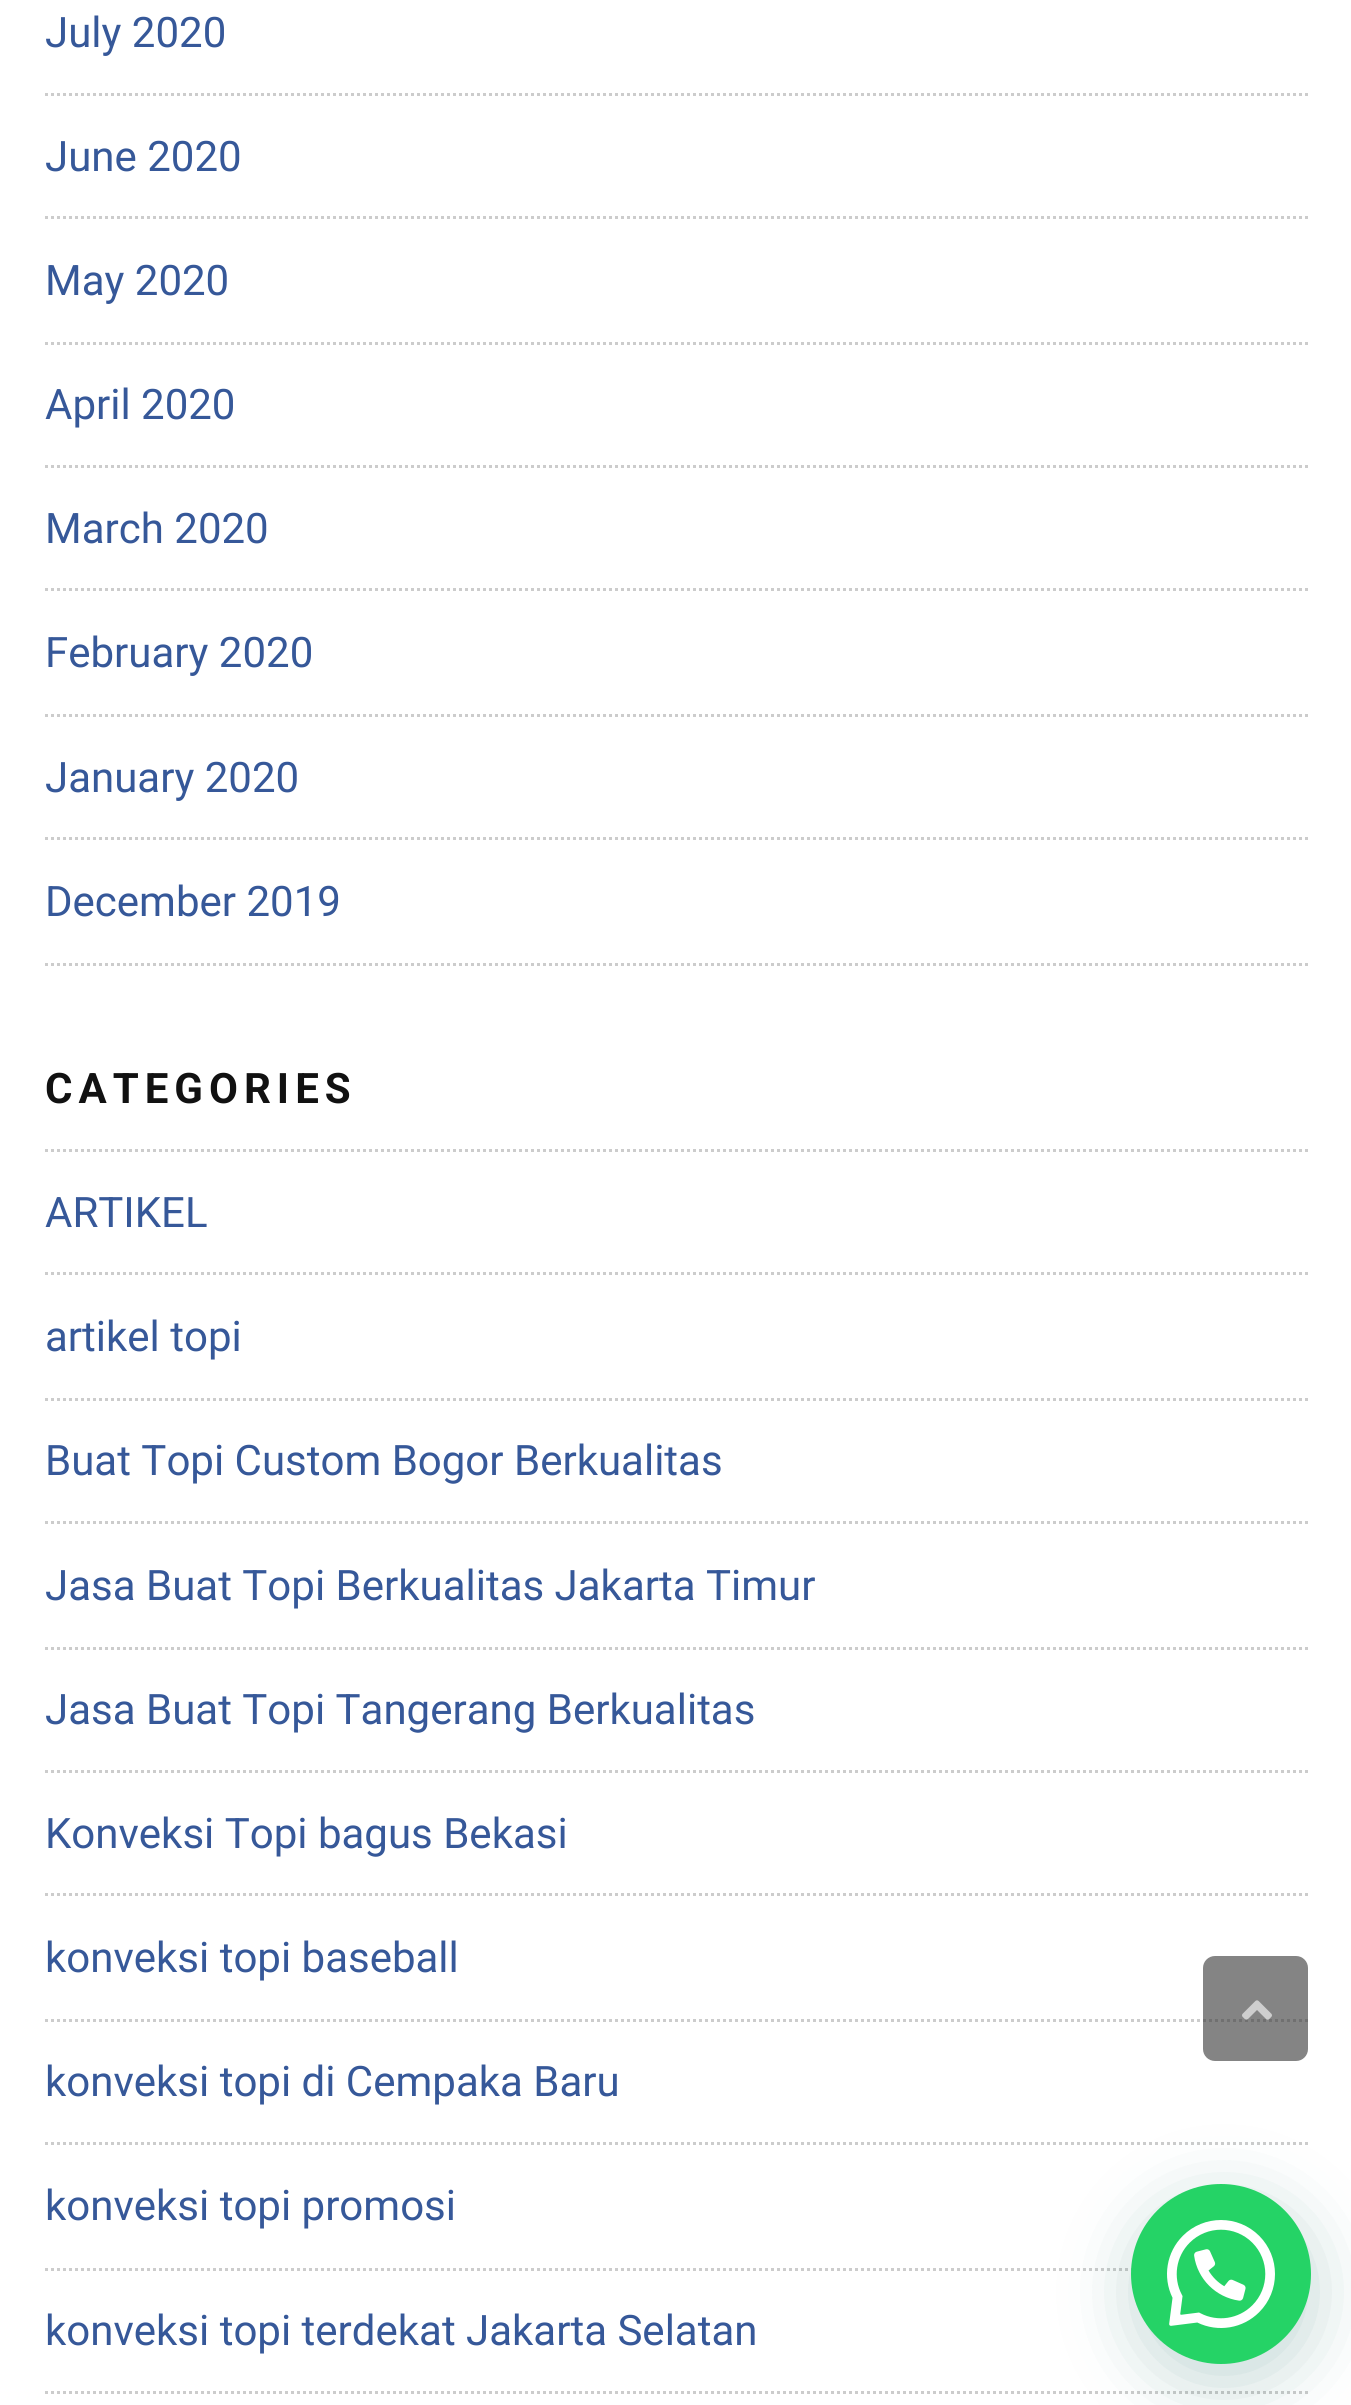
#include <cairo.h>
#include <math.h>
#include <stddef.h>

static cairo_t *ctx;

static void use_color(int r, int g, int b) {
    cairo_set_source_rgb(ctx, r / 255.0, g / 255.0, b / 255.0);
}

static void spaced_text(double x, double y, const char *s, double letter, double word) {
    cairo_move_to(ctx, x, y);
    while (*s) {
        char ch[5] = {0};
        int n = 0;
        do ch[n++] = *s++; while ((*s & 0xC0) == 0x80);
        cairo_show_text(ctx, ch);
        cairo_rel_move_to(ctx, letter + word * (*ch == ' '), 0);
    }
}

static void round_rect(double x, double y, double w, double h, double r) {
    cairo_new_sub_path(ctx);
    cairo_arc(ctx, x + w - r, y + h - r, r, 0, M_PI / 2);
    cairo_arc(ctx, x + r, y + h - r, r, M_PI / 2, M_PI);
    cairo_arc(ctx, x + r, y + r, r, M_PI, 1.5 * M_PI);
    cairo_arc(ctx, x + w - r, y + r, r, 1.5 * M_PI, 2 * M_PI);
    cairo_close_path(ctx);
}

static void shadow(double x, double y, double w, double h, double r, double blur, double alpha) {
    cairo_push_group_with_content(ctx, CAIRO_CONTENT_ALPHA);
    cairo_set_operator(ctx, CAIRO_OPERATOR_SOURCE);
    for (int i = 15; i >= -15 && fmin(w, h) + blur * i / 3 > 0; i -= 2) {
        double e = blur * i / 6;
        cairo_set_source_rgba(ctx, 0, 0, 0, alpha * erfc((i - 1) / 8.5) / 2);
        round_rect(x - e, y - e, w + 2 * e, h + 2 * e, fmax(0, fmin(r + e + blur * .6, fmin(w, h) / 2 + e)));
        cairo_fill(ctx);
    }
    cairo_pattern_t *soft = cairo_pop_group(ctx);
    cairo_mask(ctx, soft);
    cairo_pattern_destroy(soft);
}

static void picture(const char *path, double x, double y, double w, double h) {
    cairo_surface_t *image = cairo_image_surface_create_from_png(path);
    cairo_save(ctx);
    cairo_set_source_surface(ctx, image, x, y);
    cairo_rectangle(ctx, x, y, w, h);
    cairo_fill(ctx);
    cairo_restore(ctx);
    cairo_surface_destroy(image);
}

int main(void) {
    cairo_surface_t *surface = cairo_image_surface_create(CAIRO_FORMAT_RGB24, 1351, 2405);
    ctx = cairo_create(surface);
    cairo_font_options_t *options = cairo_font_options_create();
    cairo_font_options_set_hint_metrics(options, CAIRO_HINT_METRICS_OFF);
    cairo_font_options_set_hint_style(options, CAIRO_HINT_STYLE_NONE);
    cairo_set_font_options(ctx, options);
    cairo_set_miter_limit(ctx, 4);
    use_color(255, 255, 255);
    cairo_paint(ctx);
    cairo_new_path(ctx);
    cairo_move_to(ctx, 45, 94.5);
    cairo_line_to(ctx, 1308, 94.5);
    use_color(204, 204, 204);
    cairo_set_line_width(ctx, 3);
    cairo_set_dash(ctx, (double[]){3, 3}, 2, 0);
    cairo_stroke(ctx);
    cairo_select_font_face(ctx, "Roboto", CAIRO_FONT_SLANT_NORMAL, CAIRO_FONT_WEIGHT_NORMAL);
    cairo_set_font_size(ctx, 42);
    use_color(54, 88, 153);
    cairo_move_to(ctx, 45, 47);
    cairo_show_text(ctx, "July 2020");
    cairo_new_path(ctx);
    cairo_move_to(ctx, 45, 217.5);
    cairo_line_to(ctx, 1308, 217.5);
    use_color(204, 204, 204);
    cairo_stroke(ctx);
    use_color(54, 88, 153);
    cairo_move_to(ctx, 45, 171);
    cairo_show_text(ctx, "June 2020");
    cairo_new_path(ctx);
    cairo_move_to(ctx, 45, 343.5);
    cairo_line_to(ctx, 1308, 343.5);
    use_color(204, 204, 204);
    cairo_stroke(ctx);
    use_color(54, 88, 153);
    cairo_move_to(ctx, 45, 295);
    cairo_show_text(ctx, "May 2020");
    cairo_new_path(ctx);
    cairo_move_to(ctx, 45, 466.5);
    cairo_line_to(ctx, 1308, 466.5);
    use_color(204, 204, 204);
    cairo_stroke(ctx);
    use_color(54, 88, 153);
    cairo_move_to(ctx, 45, 419);
    cairo_show_text(ctx, "April 2020");
    cairo_new_path(ctx);
    cairo_move_to(ctx, 45, 589.5);
    cairo_line_to(ctx, 1308, 589.5);
    use_color(204, 204, 204);
    cairo_stroke(ctx);
    use_color(54, 88, 153);
    cairo_move_to(ctx, 45, 543);
    cairo_show_text(ctx, "March 2020");
    cairo_new_path(ctx);
    cairo_move_to(ctx, 45, 715.5);
    cairo_line_to(ctx, 1308, 715.5);
    use_color(204, 204, 204);
    cairo_stroke(ctx);
    use_color(54, 88, 153);
    cairo_move_to(ctx, 45, 667);
    cairo_show_text(ctx, "February 2020");
    cairo_new_path(ctx);
    cairo_move_to(ctx, 45, 838.5);
    cairo_line_to(ctx, 1308, 838.5);
    use_color(204, 204, 204);
    cairo_stroke(ctx);
    use_color(54, 88, 153);
    cairo_move_to(ctx, 45, 792);
    cairo_show_text(ctx, "January 2020");
    cairo_new_path(ctx);
    cairo_move_to(ctx, 45, 964.5);
    cairo_line_to(ctx, 1308, 964.5);
    use_color(204, 204, 204);
    cairo_stroke(ctx);
    use_color(54, 88, 153);
    cairo_move_to(ctx, 45, 916);
    cairo_show_text(ctx, "December 2019");
    cairo_new_path(ctx);
    cairo_move_to(ctx, 45, 1150.5);
    cairo_line_to(ctx, 1308, 1150.5);
    use_color(204, 204, 204);
    cairo_stroke(ctx);
    cairo_select_font_face(ctx, "Roboto", CAIRO_FONT_SLANT_NORMAL, CAIRO_FONT_WEIGHT_BOLD);
    use_color(17, 17, 17);
    spaced_text(45, 1103, "CATEGORIES", 6, 0);
    cairo_new_path(ctx);
    cairo_move_to(ctx, 45, 1273.5);
    cairo_line_to(ctx, 1308, 1273.5);
    use_color(204, 204, 204);
    cairo_stroke(ctx);
    cairo_select_font_face(ctx, "Roboto", CAIRO_FONT_SLANT_NORMAL, CAIRO_FONT_WEIGHT_NORMAL);
    use_color(54, 88, 153);
    cairo_move_to(ctx, 45, 1227);
    cairo_show_text(ctx, "ARTIKEL");
    cairo_new_path(ctx);
    cairo_move_to(ctx, 45, 1399.5);
    cairo_line_to(ctx, 1308, 1399.5);
    use_color(204, 204, 204);
    cairo_stroke(ctx);
    use_color(54, 88, 153);
    cairo_move_to(ctx, 45, 1351);
    cairo_show_text(ctx, "artikel topi");
    cairo_new_path(ctx);
    cairo_move_to(ctx, 45, 1522.5);
    cairo_line_to(ctx, 1308, 1522.5);
    use_color(204, 204, 204);
    cairo_stroke(ctx);
    use_color(54, 88, 153);
    cairo_move_to(ctx, 45, 1475);
    cairo_show_text(ctx, "Buat Topi Custom Bogor Berkualitas");
    cairo_new_path(ctx);
    cairo_move_to(ctx, 45, 1648.5);
    cairo_line_to(ctx, 1308, 1648.5);
    use_color(204, 204, 204);
    cairo_stroke(ctx);
    use_color(54, 88, 153);
    cairo_move_to(ctx, 45, 1600);
    cairo_show_text(ctx, "Jasa Buat Topi Berkualitas Jakarta Timur");
    cairo_new_path(ctx);
    cairo_move_to(ctx, 45, 1771.5);
    cairo_line_to(ctx, 1308, 1771.5);
    use_color(204, 204, 204);
    cairo_stroke(ctx);
    use_color(54, 88, 153);
    cairo_move_to(ctx, 45, 1724);
    cairo_show_text(ctx, "Jasa Buat Topi Tangerang Berkualitas");
    cairo_new_path(ctx);
    cairo_move_to(ctx, 45, 1894.5);
    cairo_line_to(ctx, 1308, 1894.5);
    use_color(204, 204, 204);
    cairo_stroke(ctx);
    use_color(54, 88, 153);
    cairo_move_to(ctx, 45, 1848);
    cairo_show_text(ctx, "Konveksi Topi bagus Bekasi");
    cairo_new_path(ctx);
    cairo_move_to(ctx, 45, 2020.5);
    cairo_line_to(ctx, 1308, 2020.5);
    use_color(204, 204, 204);
    cairo_stroke(ctx);
    use_color(54, 88, 153);
    cairo_move_to(ctx, 45, 1972);
    cairo_show_text(ctx, "konveksi topi baseball");
    cairo_new_path(ctx);
    cairo_move_to(ctx, 45, 2143.5);
    cairo_line_to(ctx, 1308, 2143.5);
    use_color(204, 204, 204);
    cairo_stroke(ctx);
    use_color(54, 88, 153);
    cairo_move_to(ctx, 45, 2096);
    cairo_show_text(ctx, "konveksi topi di Cempaka Baru");
    cairo_new_path(ctx);
    cairo_move_to(ctx, 45, 2269.5);
    cairo_line_to(ctx, 1308, 2269.5);
    use_color(204, 204, 204);
    cairo_stroke(ctx);
    use_color(54, 88, 153);
    cairo_move_to(ctx, 45, 2220);
    cairo_show_text(ctx, "konveksi topi promosi");
    cairo_new_path(ctx);
    cairo_move_to(ctx, 45, 2392.5);
    cairo_line_to(ctx, 1308, 2392.5);
    use_color(204, 204, 204);
    cairo_stroke(ctx);
    use_color(54, 88, 153);
    cairo_move_to(ctx, 45, 2345);
    cairo_show_text(ctx, "konveksi topi terdekat Jakarta Selatan");
    cairo_set_source_rgba(ctx, 0.2, 0.2, 0.2, 0.6);
    round_rect(1203, 1956, 105, 105, 12);
    cairo_fill(ctx);
    picture("img1.png", 1242, 2000, 30, 20);
    use_color(7, 94, 84);
    shadow(1134, 2202, 180, 180, 90, 36, 0.24);
    use_color(37, 211, 102);
    cairo_arc(ctx, 1221, 2274, 90, 0, 2 * M_PI);
    cairo_fill(ctx);
    picture("img2.png", 1167, 2220, 108, 108);
    cairo_surface_write_to_png(surface, "result.png");
    cairo_font_options_destroy(options);
    cairo_destroy(ctx);
    cairo_surface_destroy(surface);
    return 0;
}
